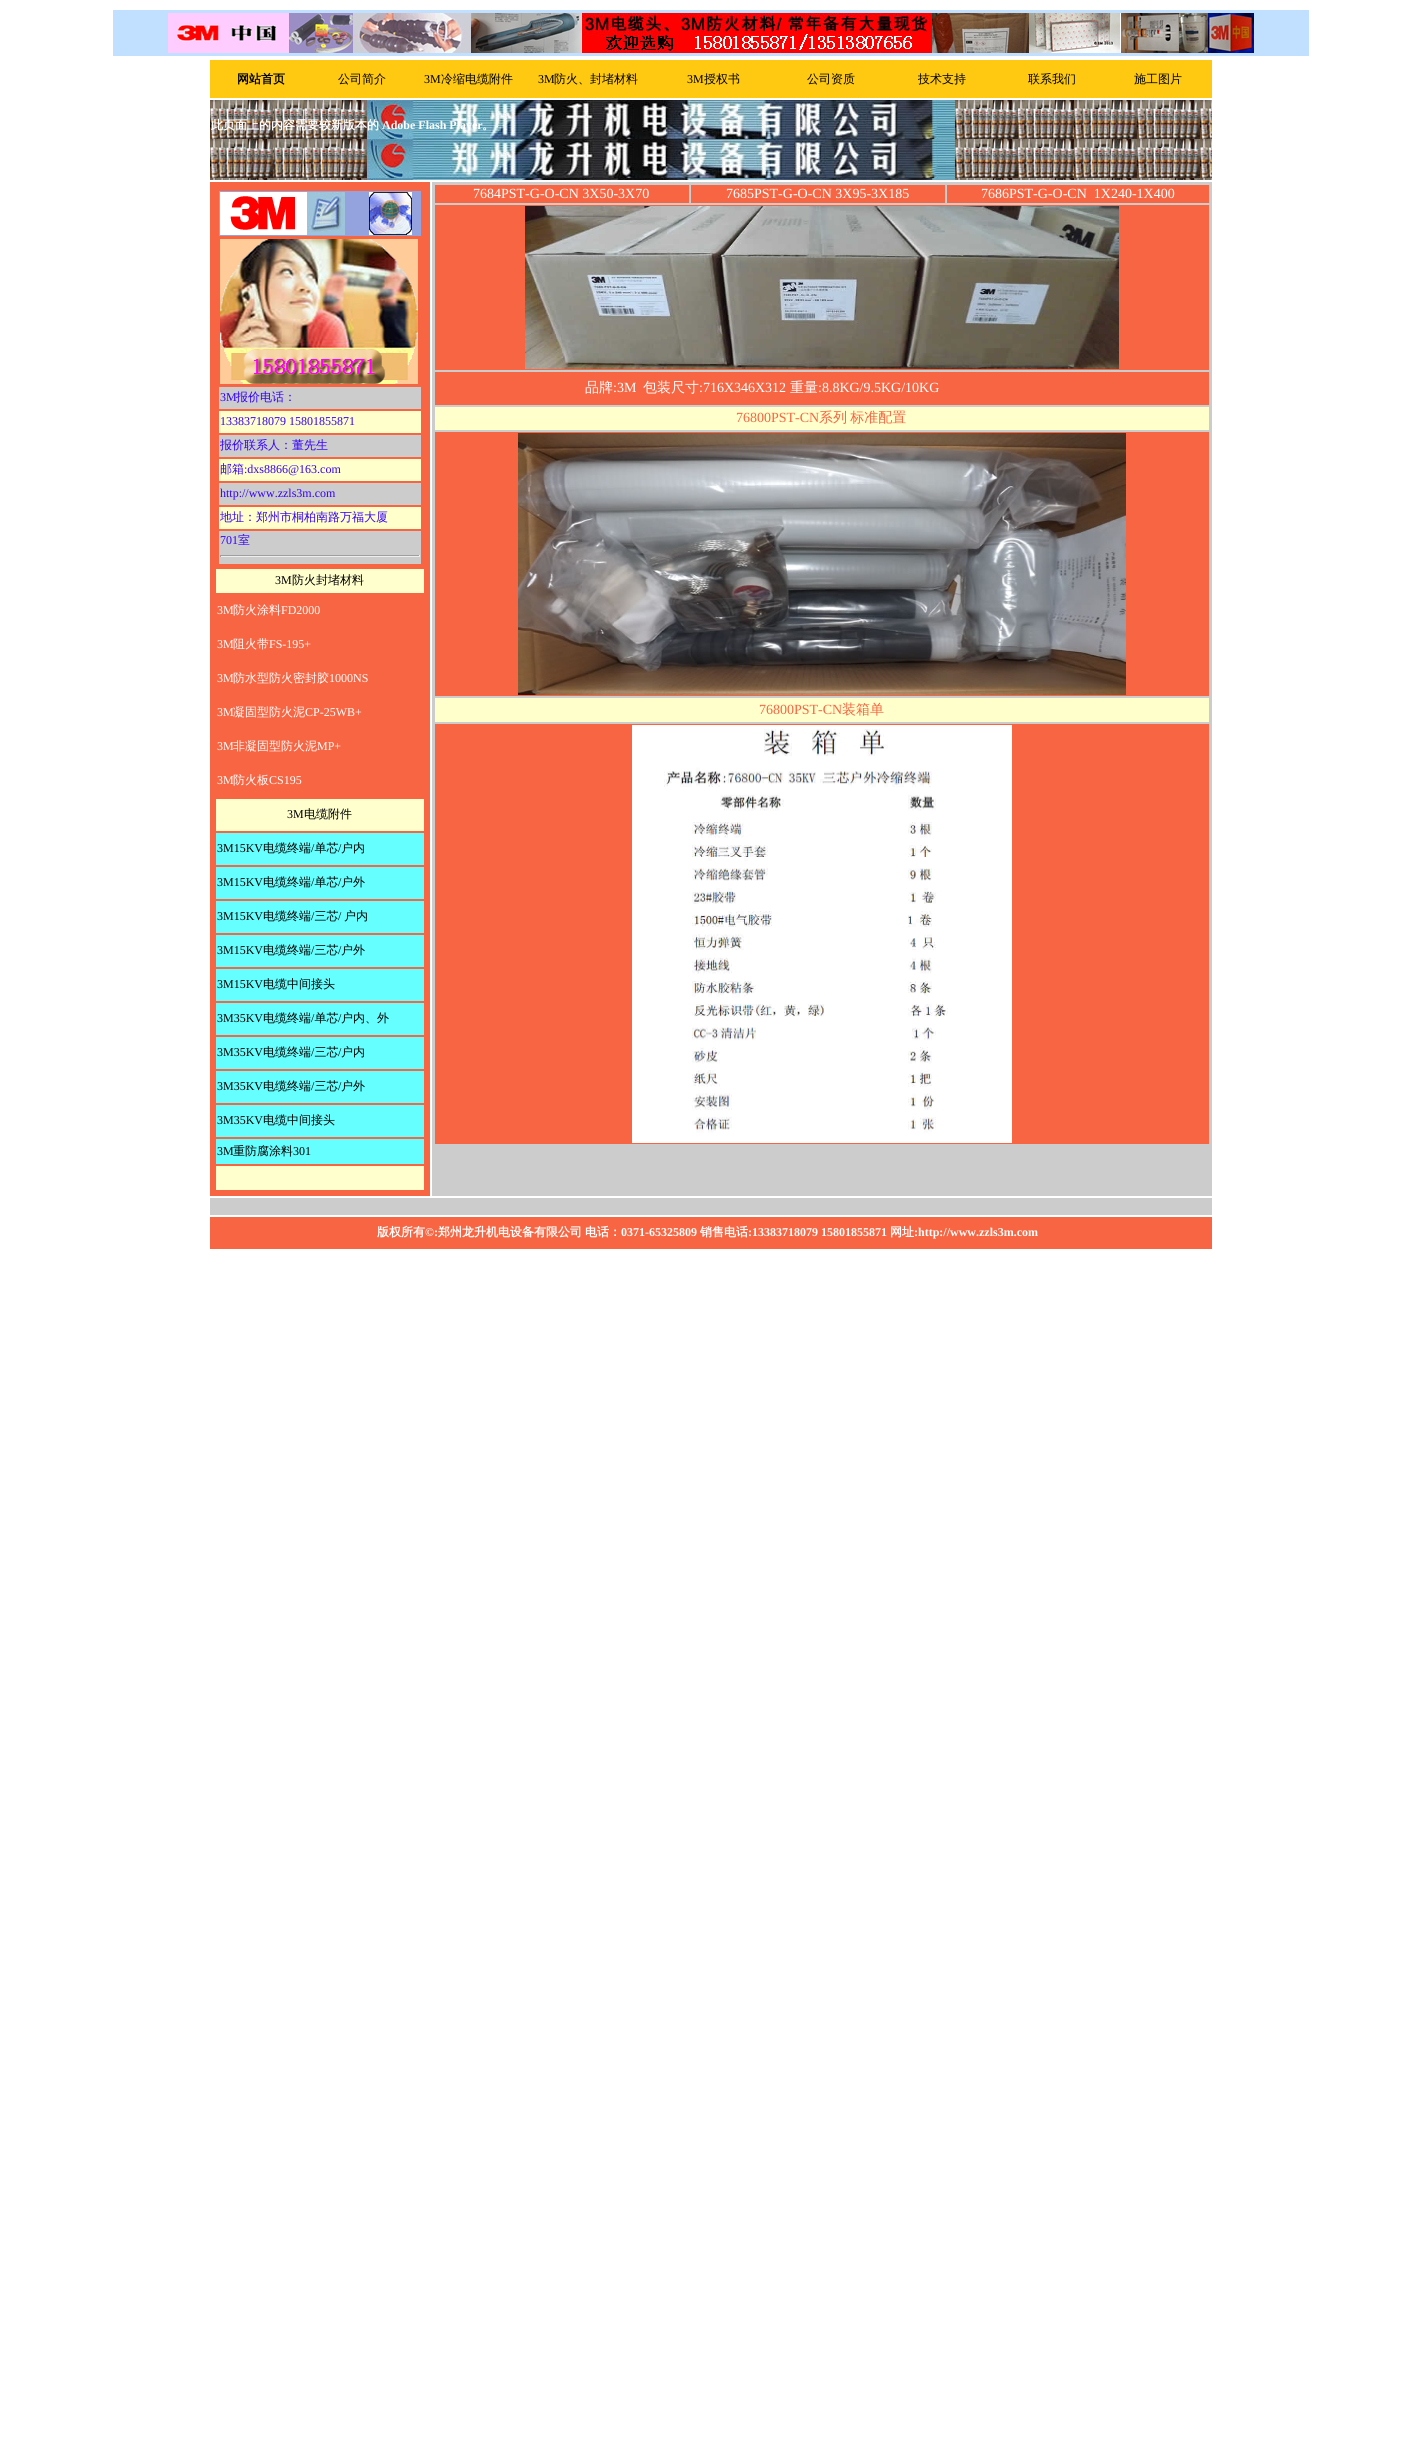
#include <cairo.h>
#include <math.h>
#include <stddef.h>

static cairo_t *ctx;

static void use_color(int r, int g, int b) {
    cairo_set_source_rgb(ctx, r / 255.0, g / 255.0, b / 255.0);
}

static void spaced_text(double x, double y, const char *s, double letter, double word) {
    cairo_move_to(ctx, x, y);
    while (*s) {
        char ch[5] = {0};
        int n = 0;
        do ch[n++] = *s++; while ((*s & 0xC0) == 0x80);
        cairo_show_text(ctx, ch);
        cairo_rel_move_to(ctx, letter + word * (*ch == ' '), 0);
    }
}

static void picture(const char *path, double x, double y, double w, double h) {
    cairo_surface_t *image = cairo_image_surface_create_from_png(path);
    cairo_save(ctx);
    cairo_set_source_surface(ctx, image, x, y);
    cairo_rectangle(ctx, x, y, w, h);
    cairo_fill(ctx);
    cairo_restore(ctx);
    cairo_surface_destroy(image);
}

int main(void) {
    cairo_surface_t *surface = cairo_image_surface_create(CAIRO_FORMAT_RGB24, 1421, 2463);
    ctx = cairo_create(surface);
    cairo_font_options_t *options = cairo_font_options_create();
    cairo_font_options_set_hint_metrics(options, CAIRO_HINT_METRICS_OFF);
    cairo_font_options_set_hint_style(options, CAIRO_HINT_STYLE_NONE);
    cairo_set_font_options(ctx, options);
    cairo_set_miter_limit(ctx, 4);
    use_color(255, 255, 255);
    cairo_paint(ctx);
    use_color(193, 224, 255);
    cairo_rectangle(ctx, 113, 10, 1196, 46);
    cairo_fill(ctx);
    picture("img1.png", 168, 13, 121, 40);
    picture("img2.png", 289, 13, 64, 40);
    picture("img3.png", 353, 13, 118, 40);
    picture("img4.png", 471, 13, 111, 40);
    picture("img5.png", 582, 13, 350, 40);
    picture("img6.png", 932, 13, 97, 40);
    picture("img7.png", 1029, 13, 91, 40);
    picture("img8.png", 1120, 13, 59, 40);
    picture("img9.png", 1179, 13, 29, 40);
    picture("img10.png", 1208, 13, 46, 40);
    use_color(254, 201, 16);
    cairo_rectangle(ctx, 210, 60, 1002, 38);
    cairo_fill(ctx);
    cairo_select_font_face(ctx, "WenQuanYi Zen Hei", CAIRO_FONT_SLANT_NORMAL, CAIRO_FONT_WEIGHT_BOLD);
    cairo_set_font_size(ctx, 12);
    use_color(0, 0, 0);
    cairo_move_to(ctx, 237, 83);
    cairo_show_text(ctx, "网站首页");
    cairo_select_font_face(ctx, "WenQuanYi Zen Hei Medium", CAIRO_FONT_SLANT_NORMAL, CAIRO_FONT_WEIGHT_NORMAL);
    cairo_move_to(ctx, 338, 83);
    cairo_show_text(ctx, "公司简介");
    cairo_select_font_face(ctx, "Liberation Serif", CAIRO_FONT_SLANT_NORMAL, CAIRO_FONT_WEIGHT_NORMAL);
    cairo_move_to(ctx, 424, 83);
    cairo_show_text(ctx, "3M");
    cairo_select_font_face(ctx, "WenQuanYi Zen Hei Medium", CAIRO_FONT_SLANT_NORMAL, CAIRO_FONT_WEIGHT_NORMAL);
    cairo_move_to(ctx, 441, 83);
    cairo_show_text(ctx, "冷缩电缆附件");
    cairo_select_font_face(ctx, "Liberation Serif", CAIRO_FONT_SLANT_NORMAL, CAIRO_FONT_WEIGHT_NORMAL);
    cairo_move_to(ctx, 538, 83);
    cairo_show_text(ctx, "3M");
    cairo_select_font_face(ctx, "WenQuanYi Zen Hei Medium", CAIRO_FONT_SLANT_NORMAL, CAIRO_FONT_WEIGHT_NORMAL);
    cairo_move_to(ctx, 554, 83);
    cairo_show_text(ctx, "防火、封堵材料");
    cairo_select_font_face(ctx, "Liberation Serif", CAIRO_FONT_SLANT_NORMAL, CAIRO_FONT_WEIGHT_NORMAL);
    cairo_move_to(ctx, 687, 83);
    cairo_show_text(ctx, "3M");
    cairo_select_font_face(ctx, "WenQuanYi Zen Hei Medium", CAIRO_FONT_SLANT_NORMAL, CAIRO_FONT_WEIGHT_NORMAL);
    cairo_move_to(ctx, 704, 83);
    cairo_show_text(ctx, "授权书");
    cairo_move_to(ctx, 807, 83);
    cairo_show_text(ctx, "公司资质");
    cairo_move_to(ctx, 918, 83);
    cairo_show_text(ctx, "技术支持");
    cairo_move_to(ctx, 1028, 83);
    cairo_show_text(ctx, "联系我们");
    cairo_move_to(ctx, 1134, 83);
    cairo_show_text(ctx, "施工图片");
    picture("img11.png", 210, 100, 1002, 80);
    cairo_select_font_face(ctx, "WenQuanYi Zen Hei", CAIRO_FONT_SLANT_NORMAL, CAIRO_FONT_WEIGHT_BOLD);
    use_color(255, 255, 255);
    cairo_move_to(ctx, 211, 129);
    cairo_show_text(ctx, "此页面上的内容需要较新版本的");
    cairo_select_font_face(ctx, "Liberation Serif", CAIRO_FONT_SLANT_NORMAL, CAIRO_FONT_WEIGHT_BOLD);
    cairo_move_to(ctx, 382, 129);
    cairo_show_text(ctx, "Adobe Flash Player");
    cairo_select_font_face(ctx, "WenQuanYi Zen Hei", CAIRO_FONT_SLANT_NORMAL, CAIRO_FONT_WEIGHT_BOLD);
    cairo_move_to(ctx, 482, 129);
    cairo_show_text(ctx, "。");
    use_color(247, 101, 66);
    cairo_rectangle(ctx, 210, 182, 220, 1014);
    cairo_fill(ctx);
    use_color(148, 162, 222);
    cairo_rectangle(ctx, 219, 191, 202, 45);
    cairo_fill(ctx);
    picture("img12.png", 220, 192, 87, 43);
    picture("img13.png", 307, 192, 38, 43);
    picture("img14.png", 369, 192, 43, 43);
    picture("img15.png", 220, 239, 198, 145);
    use_color(204, 204, 204);
    cairo_rectangle(ctx, 219, 387, 202, 22);
    cairo_fill(ctx);
    cairo_select_font_face(ctx, "Liberation Serif", CAIRO_FONT_SLANT_NORMAL, CAIRO_FONT_WEIGHT_NORMAL);
    use_color(51, 0, 255);
    cairo_move_to(ctx, 220, 401);
    cairo_show_text(ctx, "3M");
    cairo_select_font_face(ctx, "WenQuanYi Zen Hei Medium", CAIRO_FONT_SLANT_NORMAL, CAIRO_FONT_WEIGHT_NORMAL);
    cairo_move_to(ctx, 236, 401);
    cairo_show_text(ctx, "报价电话：");
    use_color(255, 255, 204);
    cairo_rectangle(ctx, 219, 411, 202, 22);
    cairo_fill(ctx);
    cairo_select_font_face(ctx, "Liberation Serif", CAIRO_FONT_SLANT_NORMAL, CAIRO_FONT_WEIGHT_NORMAL);
    use_color(51, 0, 255);
    cairo_move_to(ctx, 220, 425);
    cairo_show_text(ctx, "13383718079 15801855871");
    use_color(204, 204, 204);
    cairo_rectangle(ctx, 219, 435, 202, 22);
    cairo_fill(ctx);
    cairo_select_font_face(ctx, "WenQuanYi Zen Hei Medium", CAIRO_FONT_SLANT_NORMAL, CAIRO_FONT_WEIGHT_NORMAL);
    use_color(51, 0, 255);
    cairo_move_to(ctx, 220, 449);
    cairo_show_text(ctx, "报价联系人：董先生");
    use_color(255, 255, 204);
    cairo_rectangle(ctx, 219, 459, 202, 22);
    cairo_fill(ctx);
    use_color(51, 0, 255);
    cairo_move_to(ctx, 220, 473);
    cairo_show_text(ctx, "邮箱");
    cairo_select_font_face(ctx, "Liberation Serif", CAIRO_FONT_SLANT_NORMAL, CAIRO_FONT_WEIGHT_NORMAL);
    cairo_move_to(ctx, 244, 473);
    cairo_show_text(ctx, ":dxs8866@163.com");
    use_color(204, 204, 204);
    cairo_rectangle(ctx, 219, 483, 202, 22);
    cairo_fill(ctx);
    use_color(51, 0, 255);
    cairo_move_to(ctx, 220, 497);
    cairo_show_text(ctx, "http://www.zzls3m.com");
    use_color(255, 255, 204);
    cairo_rectangle(ctx, 219, 507, 202, 22);
    cairo_fill(ctx);
    cairo_select_font_face(ctx, "WenQuanYi Zen Hei Medium", CAIRO_FONT_SLANT_NORMAL, CAIRO_FONT_WEIGHT_NORMAL);
    use_color(51, 0, 255);
    cairo_move_to(ctx, 220, 521);
    cairo_show_text(ctx, "地址：郑州市桐柏南路万福大厦");
    use_color(204, 204, 204);
    cairo_rectangle(ctx, 219, 531, 202, 33);
    cairo_fill(ctx);
    cairo_select_font_face(ctx, "Liberation Serif", CAIRO_FONT_SLANT_NORMAL, CAIRO_FONT_WEIGHT_NORMAL);
    use_color(51, 0, 255);
    cairo_move_to(ctx, 220, 544);
    cairo_show_text(ctx, "701");
    cairo_select_font_face(ctx, "WenQuanYi Zen Hei Medium", CAIRO_FONT_SLANT_NORMAL, CAIRO_FONT_WEIGHT_NORMAL);
    cairo_move_to(ctx, 238, 544);
    cairo_show_text(ctx, "室");
    use_color(159, 159, 159);
    cairo_rectangle(ctx, 220, 555, 200, 1);
    cairo_fill(ctx);
    use_color(238, 238, 238);
    cairo_rectangle(ctx, 419, 555, 1, 2);
    cairo_fill(ctx);
    cairo_rectangle(ctx, 220, 556, 200, 1);
    cairo_fill(ctx);
    use_color(159, 159, 159);
    cairo_rectangle(ctx, 220, 555, 1, 2);
    cairo_fill(ctx);
    use_color(255, 255, 206);
    cairo_rectangle(ctx, 216, 569, 208, 24);
    cairo_fill(ctx);
    cairo_select_font_face(ctx, "Liberation Serif", CAIRO_FONT_SLANT_NORMAL, CAIRO_FONT_WEIGHT_NORMAL);
    use_color(0, 0, 0);
    cairo_move_to(ctx, 275, 584);
    cairo_show_text(ctx, "3M");
    cairo_select_font_face(ctx, "WenQuanYi Zen Hei Medium", CAIRO_FONT_SLANT_NORMAL, CAIRO_FONT_WEIGHT_NORMAL);
    cairo_move_to(ctx, 292, 584);
    cairo_show_text(ctx, "防火封堵材料");
    cairo_select_font_face(ctx, "Liberation Serif", CAIRO_FONT_SLANT_NORMAL, CAIRO_FONT_WEIGHT_NORMAL);
    use_color(255, 255, 255);
    cairo_move_to(ctx, 217, 614);
    cairo_show_text(ctx, "3M");
    cairo_select_font_face(ctx, "WenQuanYi Zen Hei Medium", CAIRO_FONT_SLANT_NORMAL, CAIRO_FONT_WEIGHT_NORMAL);
    cairo_move_to(ctx, 233, 614);
    cairo_show_text(ctx, "防火涂料");
    cairo_select_font_face(ctx, "Liberation Serif", CAIRO_FONT_SLANT_NORMAL, CAIRO_FONT_WEIGHT_NORMAL);
    cairo_move_to(ctx, 281, 614);
    cairo_show_text(ctx, "FD2000");
    cairo_move_to(ctx, 217, 648);
    cairo_show_text(ctx, "3M");
    cairo_select_font_face(ctx, "WenQuanYi Zen Hei Medium", CAIRO_FONT_SLANT_NORMAL, CAIRO_FONT_WEIGHT_NORMAL);
    cairo_move_to(ctx, 233, 648);
    cairo_show_text(ctx, "阻火带");
    cairo_select_font_face(ctx, "Liberation Serif", CAIRO_FONT_SLANT_NORMAL, CAIRO_FONT_WEIGHT_NORMAL);
    cairo_move_to(ctx, 269, 648);
    cairo_show_text(ctx, "FS-195+");
    cairo_move_to(ctx, 217, 682);
    cairo_show_text(ctx, "3M");
    cairo_select_font_face(ctx, "WenQuanYi Zen Hei Medium", CAIRO_FONT_SLANT_NORMAL, CAIRO_FONT_WEIGHT_NORMAL);
    cairo_move_to(ctx, 233, 682);
    cairo_show_text(ctx, "防水型防火密封胶");
    cairo_select_font_face(ctx, "Liberation Serif", CAIRO_FONT_SLANT_NORMAL, CAIRO_FONT_WEIGHT_NORMAL);
    cairo_move_to(ctx, 329, 682);
    cairo_show_text(ctx, "1000NS");
    cairo_move_to(ctx, 217, 716);
    cairo_show_text(ctx, "3M");
    cairo_select_font_face(ctx, "WenQuanYi Zen Hei Medium", CAIRO_FONT_SLANT_NORMAL, CAIRO_FONT_WEIGHT_NORMAL);
    cairo_move_to(ctx, 233, 716);
    cairo_show_text(ctx, "凝固型防火泥");
    cairo_select_font_face(ctx, "Liberation Serif", CAIRO_FONT_SLANT_NORMAL, CAIRO_FONT_WEIGHT_NORMAL);
    cairo_move_to(ctx, 305, 716);
    cairo_show_text(ctx, "CP-25WB+");
    cairo_move_to(ctx, 217, 750);
    cairo_show_text(ctx, "3M");
    cairo_select_font_face(ctx, "WenQuanYi Zen Hei Medium", CAIRO_FONT_SLANT_NORMAL, CAIRO_FONT_WEIGHT_NORMAL);
    cairo_move_to(ctx, 233, 750);
    cairo_show_text(ctx, "非凝固型防火泥");
    cairo_select_font_face(ctx, "Liberation Serif", CAIRO_FONT_SLANT_NORMAL, CAIRO_FONT_WEIGHT_NORMAL);
    cairo_move_to(ctx, 317, 750);
    cairo_show_text(ctx, "MP+");
    cairo_move_to(ctx, 217, 784);
    cairo_show_text(ctx, "3M");
    cairo_select_font_face(ctx, "WenQuanYi Zen Hei Medium", CAIRO_FONT_SLANT_NORMAL, CAIRO_FONT_WEIGHT_NORMAL);
    cairo_move_to(ctx, 233, 784);
    cairo_show_text(ctx, "防火板");
    cairo_select_font_face(ctx, "Liberation Serif", CAIRO_FONT_SLANT_NORMAL, CAIRO_FONT_WEIGHT_NORMAL);
    cairo_move_to(ctx, 269, 784);
    cairo_show_text(ctx, "CS195");
    use_color(255, 255, 206);
    cairo_rectangle(ctx, 216, 799, 208, 32);
    cairo_fill(ctx);
    use_color(0, 0, 0);
    cairo_move_to(ctx, 287, 818);
    cairo_show_text(ctx, "3M");
    cairo_select_font_face(ctx, "WenQuanYi Zen Hei Medium", CAIRO_FONT_SLANT_NORMAL, CAIRO_FONT_WEIGHT_NORMAL);
    cairo_move_to(ctx, 304, 818);
    cairo_show_text(ctx, "电缆附件");
    use_color(102, 255, 255);
    cairo_rectangle(ctx, 216, 833, 208, 32);
    cairo_fill(ctx);
    cairo_select_font_face(ctx, "Liberation Serif", CAIRO_FONT_SLANT_NORMAL, CAIRO_FONT_WEIGHT_NORMAL);
    use_color(0, 0, 0);
    cairo_move_to(ctx, 217, 852);
    cairo_show_text(ctx, "3M15KV");
    cairo_select_font_face(ctx, "WenQuanYi Zen Hei Medium", CAIRO_FONT_SLANT_NORMAL, CAIRO_FONT_WEIGHT_NORMAL);
    cairo_move_to(ctx, 263, 852);
    cairo_show_text(ctx, "电缆终端 单芯");
    cairo_select_font_face(ctx, "Liberation Serif", CAIRO_FONT_SLANT_NORMAL, CAIRO_FONT_WEIGHT_NORMAL);
    cairo_move_to(ctx, 338, 852);
    cairo_show_text(ctx, "/");
    cairo_select_font_face(ctx, "WenQuanYi Zen Hei Medium", CAIRO_FONT_SLANT_NORMAL, CAIRO_FONT_WEIGHT_NORMAL);
    cairo_move_to(ctx, 341, 852);
    cairo_show_text(ctx, "户内");
    cairo_select_font_face(ctx, "Liberation Serif", CAIRO_FONT_SLANT_NORMAL, CAIRO_FONT_WEIGHT_NORMAL);
    cairo_move_to(ctx, 311, 852);
    cairo_show_text(ctx, "/");
    use_color(102, 255, 255);
    cairo_rectangle(ctx, 216, 867, 208, 32);
    cairo_fill(ctx);
    use_color(0, 0, 0);
    cairo_move_to(ctx, 217, 886);
    cairo_show_text(ctx, "3M15KV");
    cairo_select_font_face(ctx, "WenQuanYi Zen Hei Medium", CAIRO_FONT_SLANT_NORMAL, CAIRO_FONT_WEIGHT_NORMAL);
    cairo_move_to(ctx, 263, 886);
    cairo_show_text(ctx, "电缆终端 单芯");
    cairo_select_font_face(ctx, "Liberation Serif", CAIRO_FONT_SLANT_NORMAL, CAIRO_FONT_WEIGHT_NORMAL);
    cairo_move_to(ctx, 338, 886);
    cairo_show_text(ctx, "/");
    cairo_select_font_face(ctx, "WenQuanYi Zen Hei Medium", CAIRO_FONT_SLANT_NORMAL, CAIRO_FONT_WEIGHT_NORMAL);
    cairo_move_to(ctx, 341, 886);
    cairo_show_text(ctx, "户外");
    cairo_select_font_face(ctx, "Liberation Serif", CAIRO_FONT_SLANT_NORMAL, CAIRO_FONT_WEIGHT_NORMAL);
    cairo_move_to(ctx, 311, 886);
    cairo_show_text(ctx, "/");
    use_color(102, 255, 255);
    cairo_rectangle(ctx, 216, 901, 208, 32);
    cairo_fill(ctx);
    use_color(0, 0, 0);
    cairo_move_to(ctx, 217, 920);
    cairo_show_text(ctx, "3M15KV");
    cairo_select_font_face(ctx, "WenQuanYi Zen Hei Medium", CAIRO_FONT_SLANT_NORMAL, CAIRO_FONT_WEIGHT_NORMAL);
    cairo_move_to(ctx, 263, 920);
    cairo_show_text(ctx, "电缆终端 三芯");
    cairo_move_to(ctx, 344, 920);
    cairo_show_text(ctx, "户内");
    cairo_select_font_face(ctx, "Liberation Serif", CAIRO_FONT_SLANT_NORMAL, CAIRO_FONT_WEIGHT_NORMAL);
    cairo_move_to(ctx, 311, 920);
    cairo_show_text(ctx, "/");
    cairo_move_to(ctx, 338, 920);
    cairo_show_text(ctx, "/");
    use_color(102, 255, 255);
    cairo_rectangle(ctx, 216, 935, 208, 32);
    cairo_fill(ctx);
    use_color(0, 0, 0);
    cairo_move_to(ctx, 217, 954);
    cairo_show_text(ctx, "3M15KV");
    cairo_select_font_face(ctx, "WenQuanYi Zen Hei Medium", CAIRO_FONT_SLANT_NORMAL, CAIRO_FONT_WEIGHT_NORMAL);
    cairo_move_to(ctx, 263, 954);
    cairo_show_text(ctx, "电缆终端 三芯");
    cairo_select_font_face(ctx, "Liberation Serif", CAIRO_FONT_SLANT_NORMAL, CAIRO_FONT_WEIGHT_NORMAL);
    cairo_move_to(ctx, 338, 954);
    cairo_show_text(ctx, "/");
    cairo_select_font_face(ctx, "WenQuanYi Zen Hei Medium", CAIRO_FONT_SLANT_NORMAL, CAIRO_FONT_WEIGHT_NORMAL);
    cairo_move_to(ctx, 341, 954);
    cairo_show_text(ctx, "户外");
    cairo_select_font_face(ctx, "Liberation Serif", CAIRO_FONT_SLANT_NORMAL, CAIRO_FONT_WEIGHT_NORMAL);
    cairo_move_to(ctx, 311, 954);
    cairo_show_text(ctx, "/");
    use_color(102, 255, 255);
    cairo_rectangle(ctx, 216, 969, 208, 32);
    cairo_fill(ctx);
    use_color(0, 0, 0);
    cairo_move_to(ctx, 217, 988);
    cairo_show_text(ctx, "3M15KV");
    cairo_select_font_face(ctx, "WenQuanYi Zen Hei Medium", CAIRO_FONT_SLANT_NORMAL, CAIRO_FONT_WEIGHT_NORMAL);
    cairo_move_to(ctx, 263, 988);
    cairo_show_text(ctx, "电缆中间接头");
    use_color(102, 255, 255);
    cairo_rectangle(ctx, 216, 1003, 208, 32);
    cairo_fill(ctx);
    cairo_select_font_face(ctx, "Liberation Serif", CAIRO_FONT_SLANT_NORMAL, CAIRO_FONT_WEIGHT_NORMAL);
    use_color(0, 0, 0);
    cairo_move_to(ctx, 217, 1022);
    cairo_show_text(ctx, "3M35KV");
    cairo_select_font_face(ctx, "WenQuanYi Zen Hei Medium", CAIRO_FONT_SLANT_NORMAL, CAIRO_FONT_WEIGHT_NORMAL);
    cairo_move_to(ctx, 263, 1022);
    cairo_show_text(ctx, "电缆终端 单芯");
    cairo_select_font_face(ctx, "Liberation Serif", CAIRO_FONT_SLANT_NORMAL, CAIRO_FONT_WEIGHT_NORMAL);
    cairo_move_to(ctx, 338, 1022);
    cairo_show_text(ctx, "/");
    cairo_select_font_face(ctx, "WenQuanYi Zen Hei Medium", CAIRO_FONT_SLANT_NORMAL, CAIRO_FONT_WEIGHT_NORMAL);
    cairo_move_to(ctx, 341, 1022);
    cairo_show_text(ctx, "户内、外");
    cairo_select_font_face(ctx, "Liberation Serif", CAIRO_FONT_SLANT_NORMAL, CAIRO_FONT_WEIGHT_NORMAL);
    cairo_move_to(ctx, 311, 1022);
    cairo_show_text(ctx, "/");
    use_color(102, 255, 255);
    cairo_rectangle(ctx, 216, 1037, 208, 32);
    cairo_fill(ctx);
    use_color(0, 0, 0);
    cairo_move_to(ctx, 217, 1056);
    cairo_show_text(ctx, "3M35KV");
    cairo_select_font_face(ctx, "WenQuanYi Zen Hei Medium", CAIRO_FONT_SLANT_NORMAL, CAIRO_FONT_WEIGHT_NORMAL);
    cairo_move_to(ctx, 263, 1056);
    cairo_show_text(ctx, "电缆终端 三芯");
    cairo_select_font_face(ctx, "Liberation Serif", CAIRO_FONT_SLANT_NORMAL, CAIRO_FONT_WEIGHT_NORMAL);
    cairo_move_to(ctx, 338, 1056);
    cairo_show_text(ctx, "/");
    cairo_select_font_face(ctx, "WenQuanYi Zen Hei Medium", CAIRO_FONT_SLANT_NORMAL, CAIRO_FONT_WEIGHT_NORMAL);
    cairo_move_to(ctx, 341, 1056);
    cairo_show_text(ctx, "户内");
    cairo_select_font_face(ctx, "Liberation Serif", CAIRO_FONT_SLANT_NORMAL, CAIRO_FONT_WEIGHT_NORMAL);
    cairo_move_to(ctx, 311, 1056);
    cairo_show_text(ctx, "/");
    use_color(102, 255, 255);
    cairo_rectangle(ctx, 216, 1071, 208, 32);
    cairo_fill(ctx);
    use_color(0, 0, 0);
    cairo_move_to(ctx, 217, 1090);
    cairo_show_text(ctx, "3M35KV");
    cairo_select_font_face(ctx, "WenQuanYi Zen Hei Medium", CAIRO_FONT_SLANT_NORMAL, CAIRO_FONT_WEIGHT_NORMAL);
    cairo_move_to(ctx, 263, 1090);
    cairo_show_text(ctx, "电缆终端 三芯");
    cairo_select_font_face(ctx, "Liberation Serif", CAIRO_FONT_SLANT_NORMAL, CAIRO_FONT_WEIGHT_NORMAL);
    cairo_move_to(ctx, 338, 1090);
    cairo_show_text(ctx, "/");
    cairo_select_font_face(ctx, "WenQuanYi Zen Hei Medium", CAIRO_FONT_SLANT_NORMAL, CAIRO_FONT_WEIGHT_NORMAL);
    cairo_move_to(ctx, 341, 1090);
    cairo_show_text(ctx, "户外");
    cairo_select_font_face(ctx, "Liberation Serif", CAIRO_FONT_SLANT_NORMAL, CAIRO_FONT_WEIGHT_NORMAL);
    cairo_move_to(ctx, 311, 1090);
    cairo_show_text(ctx, "/");
    use_color(102, 255, 255);
    cairo_rectangle(ctx, 216, 1105, 208, 32);
    cairo_fill(ctx);
    use_color(0, 0, 0);
    cairo_move_to(ctx, 217, 1124);
    cairo_show_text(ctx, "3M35KV");
    cairo_select_font_face(ctx, "WenQuanYi Zen Hei Medium", CAIRO_FONT_SLANT_NORMAL, CAIRO_FONT_WEIGHT_NORMAL);
    cairo_move_to(ctx, 263, 1124);
    cairo_show_text(ctx, "电缆中间接头");
    use_color(102, 255, 255);
    cairo_rectangle(ctx, 216, 1139, 208, 25);
    cairo_fill(ctx);
    cairo_select_font_face(ctx, "Liberation Serif", CAIRO_FONT_SLANT_NORMAL, CAIRO_FONT_WEIGHT_NORMAL);
    use_color(0, 0, 0);
    cairo_move_to(ctx, 217, 1155);
    cairo_show_text(ctx, "3M");
    cairo_select_font_face(ctx, "WenQuanYi Zen Hei Medium", CAIRO_FONT_SLANT_NORMAL, CAIRO_FONT_WEIGHT_NORMAL);
    cairo_move_to(ctx, 233, 1155);
    cairo_show_text(ctx, "重防腐涂料");
    cairo_select_font_face(ctx, "Liberation Serif", CAIRO_FONT_SLANT_NORMAL, CAIRO_FONT_WEIGHT_NORMAL);
    cairo_move_to(ctx, 293, 1155);
    cairo_show_text(ctx, "301");
    use_color(255, 255, 206);
    cairo_rectangle(ctx, 216, 1166, 208, 24);
    cairo_fill(ctx);
    use_color(204, 204, 204);
    cairo_rectangle(ctx, 432, 182, 780, 1014);
    cairo_fill(ctx);
    use_color(247, 101, 66);
    cairo_rectangle(ctx, 435, 185, 254, 18);
    cairo_fill(ctx);
    cairo_set_font_size(ctx, 14);
    use_color(255, 255, 255);
    cairo_move_to(ctx, 473, 198);
    cairo_show_text(ctx, "7684PST-G-O-CN 3X50-3X70");
    use_color(247, 101, 66);
    cairo_rectangle(ctx, 691, 185, 254, 18);
    cairo_fill(ctx);
    use_color(255, 255, 255);
    cairo_move_to(ctx, 726, 198);
    cairo_show_text(ctx, "7685PST-G-O-CN 3X95-3X185");
    use_color(247, 101, 66);
    cairo_rectangle(ctx, 947, 185, 262, 18);
    cairo_fill(ctx);
    use_color(255, 255, 255);
    cairo_move_to(ctx, 981, 198);
    cairo_show_text(ctx, "7686PST-G-O-CN  1X240-1X400");
    use_color(247, 101, 66);
    cairo_rectangle(ctx, 435, 205, 774, 165);
    cairo_fill(ctx);
    picture("img16.png", 525, 206, 594, 163);
    cairo_rectangle(ctx, 435, 372, 774, 33);
    cairo_fill(ctx);
    cairo_select_font_face(ctx, "WenQuanYi Zen Hei Medium", CAIRO_FONT_SLANT_NORMAL, CAIRO_FONT_WEIGHT_NORMAL);
    use_color(255, 255, 255);
    cairo_move_to(ctx, 585, 392);
    cairo_show_text(ctx, "品牌");
    cairo_select_font_face(ctx, "Liberation Serif", CAIRO_FONT_SLANT_NORMAL, CAIRO_FONT_WEIGHT_NORMAL);
    cairo_move_to(ctx, 613, 392);
    cairo_show_text(ctx, ":3M");
    cairo_select_font_face(ctx, "WenQuanYi Zen Hei Medium", CAIRO_FONT_SLANT_NORMAL, CAIRO_FONT_WEIGHT_NORMAL);
    cairo_move_to(ctx, 643, 392);
    cairo_show_text(ctx, "包装尺寸");
    cairo_select_font_face(ctx, "Liberation Serif", CAIRO_FONT_SLANT_NORMAL, CAIRO_FONT_WEIGHT_NORMAL);
    cairo_move_to(ctx, 699, 392);
    cairo_show_text(ctx, ":716X346X312");
    cairo_select_font_face(ctx, "WenQuanYi Zen Hei Medium", CAIRO_FONT_SLANT_NORMAL, CAIRO_FONT_WEIGHT_NORMAL);
    cairo_move_to(ctx, 790, 392);
    cairo_show_text(ctx, "重量");
    cairo_select_font_face(ctx, "Liberation Serif", CAIRO_FONT_SLANT_NORMAL, CAIRO_FONT_WEIGHT_NORMAL);
    cairo_move_to(ctx, 818, 392);
    cairo_show_text(ctx, ":8.8KG/9.5KG/10KG");
    use_color(255, 255, 204);
    cairo_rectangle(ctx, 435, 407, 774, 23);
    cairo_fill(ctx);
    use_color(247, 101, 66);
    cairo_move_to(ctx, 736, 422);
    cairo_show_text(ctx, "76800PST-CN");
    cairo_select_font_face(ctx, "WenQuanYi Zen Hei Medium", CAIRO_FONT_SLANT_NORMAL, CAIRO_FONT_WEIGHT_NORMAL);
    spaced_text(819, 422, "系列 标准配置", 0, -1);
    cairo_rectangle(ctx, 435, 432, 774, 264);
    cairo_fill(ctx);
    picture("img17.png", 518, 433, 608, 262);
    use_color(255, 255, 204);
    cairo_rectangle(ctx, 435, 698, 774, 24);
    cairo_fill(ctx);
    cairo_select_font_face(ctx, "Liberation Serif", CAIRO_FONT_SLANT_NORMAL, CAIRO_FONT_WEIGHT_NORMAL);
    use_color(247, 101, 66);
    cairo_move_to(ctx, 759, 714);
    cairo_show_text(ctx, "76800PST-CN");
    cairo_select_font_face(ctx, "WenQuanYi Zen Hei Medium", CAIRO_FONT_SLANT_NORMAL, CAIRO_FONT_WEIGHT_NORMAL);
    cairo_move_to(ctx, 842, 714);
    cairo_show_text(ctx, "装箱单");
    cairo_rectangle(ctx, 435, 724, 774, 420);
    cairo_fill(ctx);
    picture("img18.png", 632, 725, 380, 418);
    use_color(204, 204, 204);
    cairo_rectangle(ctx, 210, 1198, 1002, 17);
    cairo_fill(ctx);
    use_color(247, 101, 66);
    cairo_rectangle(ctx, 210, 1217, 1002, 32);
    cairo_fill(ctx);
    cairo_select_font_face(ctx, "WenQuanYi Zen Hei", CAIRO_FONT_SLANT_NORMAL, CAIRO_FONT_WEIGHT_BOLD);
    cairo_set_font_size(ctx, 12);
    use_color(255, 255, 255);
    cairo_move_to(ctx, 377, 1236);
    cairo_show_text(ctx, "版权所有");
    cairo_select_font_face(ctx, "Liberation Serif", CAIRO_FONT_SLANT_NORMAL, CAIRO_FONT_WEIGHT_BOLD);
    cairo_move_to(ctx, 425, 1236);
    cairo_show_text(ctx, "©:");
    cairo_select_font_face(ctx, "WenQuanYi Zen Hei", CAIRO_FONT_SLANT_NORMAL, CAIRO_FONT_WEIGHT_BOLD);
    cairo_move_to(ctx, 438, 1236);
    cairo_show_text(ctx, "郑州龙升机电设备有限公司");
    cairo_move_to(ctx, 585, 1236);
    cairo_show_text(ctx, "电话：");
    cairo_select_font_face(ctx, "Liberation Serif", CAIRO_FONT_SLANT_NORMAL, CAIRO_FONT_WEIGHT_BOLD);
    cairo_move_to(ctx, 621, 1236);
    cairo_show_text(ctx, "0371-65325809");
    cairo_select_font_face(ctx, "WenQuanYi Zen Hei", CAIRO_FONT_SLANT_NORMAL, CAIRO_FONT_WEIGHT_BOLD);
    cairo_move_to(ctx, 700, 1236);
    cairo_show_text(ctx, "销售电话");
    cairo_select_font_face(ctx, "Liberation Serif", CAIRO_FONT_SLANT_NORMAL, CAIRO_FONT_WEIGHT_BOLD);
    cairo_move_to(ctx, 748, 1236);
    cairo_show_text(ctx, ":13383718079 15801855871");
    cairo_select_font_face(ctx, "WenQuanYi Zen Hei", CAIRO_FONT_SLANT_NORMAL, CAIRO_FONT_WEIGHT_BOLD);
    cairo_move_to(ctx, 890, 1236);
    cairo_show_text(ctx, "网址");
    cairo_select_font_face(ctx, "Liberation Serif", CAIRO_FONT_SLANT_NORMAL, CAIRO_FONT_WEIGHT_BOLD);
    cairo_move_to(ctx, 914, 1236);
    cairo_show_text(ctx, ":http://www.zzls3m.com");
    cairo_surface_write_to_png(surface, "result.png");
    cairo_font_options_destroy(options);
    cairo_destroy(ctx);
    cairo_surface_destroy(surface);
    return 0;
}
